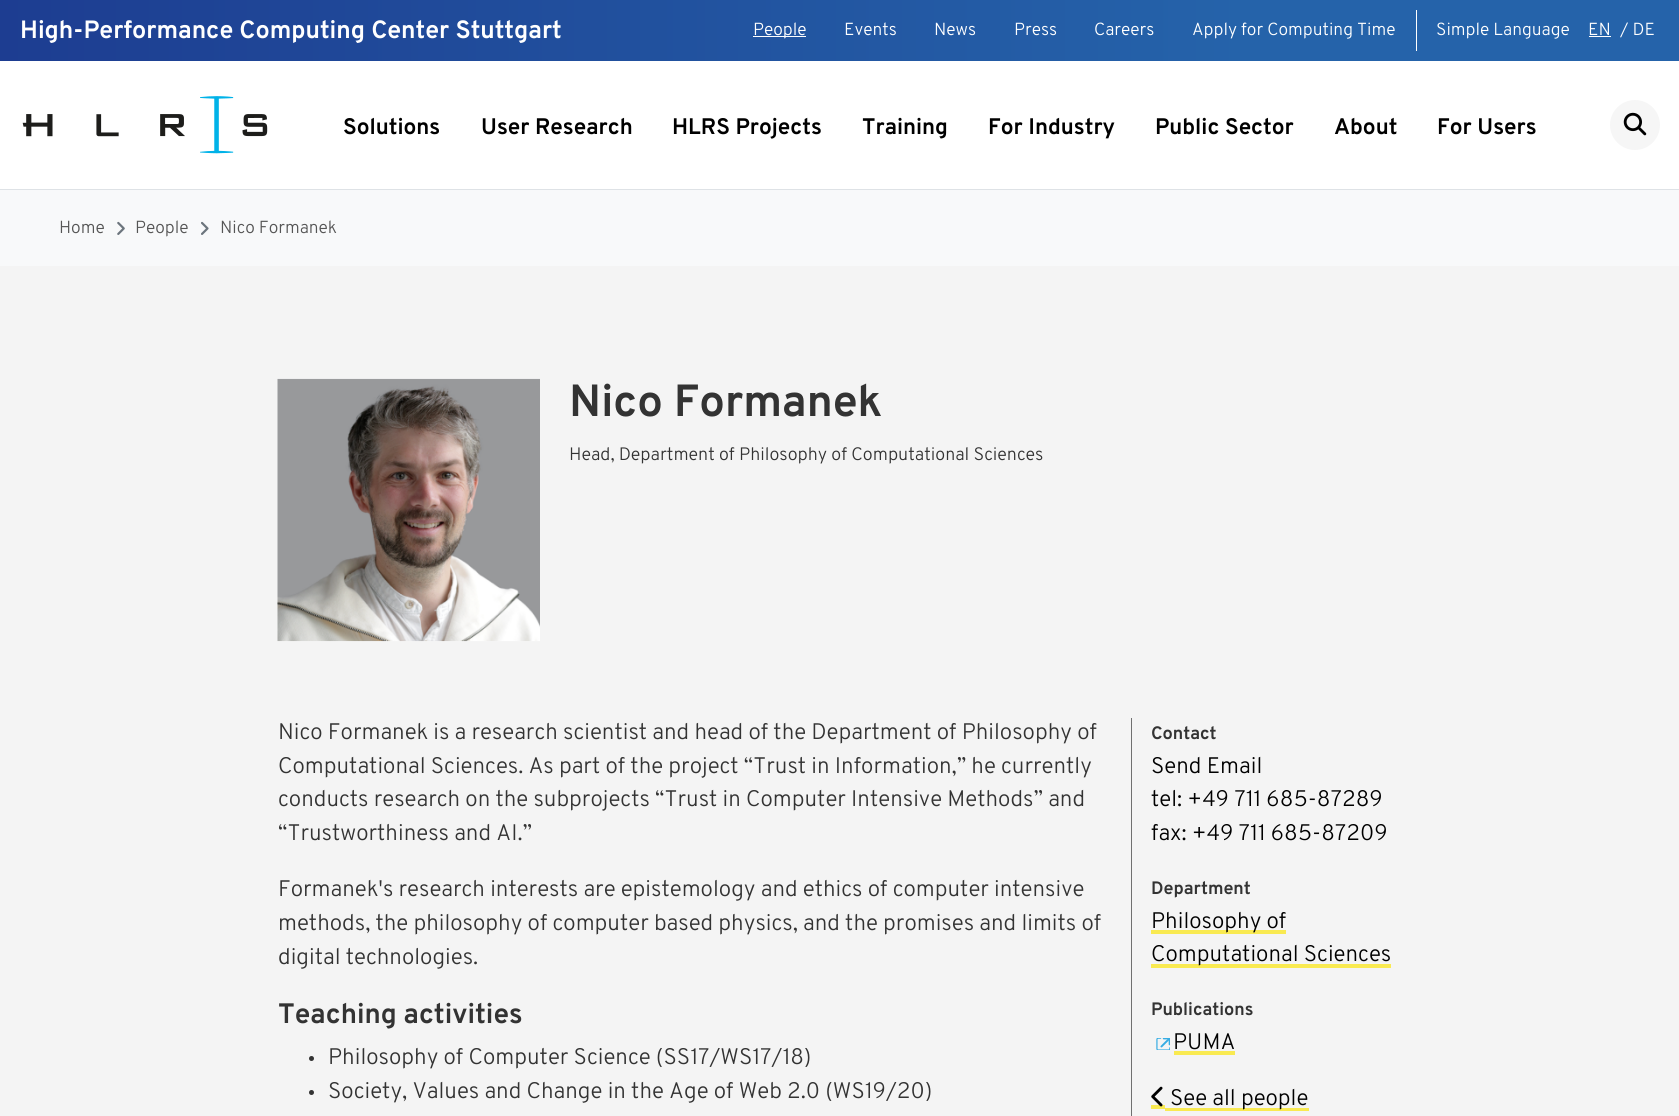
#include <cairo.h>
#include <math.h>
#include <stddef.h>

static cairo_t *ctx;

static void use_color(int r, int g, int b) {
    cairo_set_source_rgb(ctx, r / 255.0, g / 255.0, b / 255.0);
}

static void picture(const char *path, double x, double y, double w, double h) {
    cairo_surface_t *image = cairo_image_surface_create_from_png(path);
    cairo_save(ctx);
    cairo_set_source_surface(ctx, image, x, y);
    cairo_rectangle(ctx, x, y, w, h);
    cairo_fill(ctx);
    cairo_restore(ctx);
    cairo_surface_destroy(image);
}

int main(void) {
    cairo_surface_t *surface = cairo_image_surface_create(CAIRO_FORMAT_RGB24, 1679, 1116);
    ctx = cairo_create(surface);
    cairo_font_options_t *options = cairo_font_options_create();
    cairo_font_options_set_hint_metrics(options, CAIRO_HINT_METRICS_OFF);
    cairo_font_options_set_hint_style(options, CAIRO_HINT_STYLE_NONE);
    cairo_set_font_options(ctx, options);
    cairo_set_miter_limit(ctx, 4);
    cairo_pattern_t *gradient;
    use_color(244, 244, 244);
    cairo_paint(ctx);
    use_color(255, 255, 255);
    cairo_rectangle(ctx, 0, 61, 1679, 128);
    cairo_fill(ctx);
    use_color(222, 226, 230);
    cairo_rectangle(ctx, 0, 189, 1679, 1);
    cairo_fill(ctx);
    gradient = cairo_pattern_create_linear(0, 31, 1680, 31);
    cairo_pattern_add_color_stop_rgba(gradient, 0, 0.114, 0.239, 0.569, 1);
    cairo_pattern_add_color_stop_rgba(gradient, 0.74, 0.145, 0.388, 0.667, 1);
    cairo_set_source(ctx, gradient);
    cairo_pattern_destroy(gradient);
    cairo_rectangle(ctx, 0, 0, 1679, 61);
    cairo_fill(ctx);
    cairo_select_font_face(ctx, "Overpass", CAIRO_FONT_SLANT_NORMAL, CAIRO_FONT_WEIGHT_BOLD);
    cairo_set_font_size(ctx, 25);
    use_color(255, 255, 255);
    cairo_move_to(ctx, 20, 38);
    cairo_show_text(ctx, "High-Performance Computing Center Stuttgart");
    cairo_rectangle(ctx, 1416, 10, 1, 41);
    cairo_fill(ctx);
    cairo_rectangle(ctx, 753, 36, 53, 1);
    cairo_fill(ctx);
    cairo_select_font_face(ctx, "Overpass Light", CAIRO_FONT_SLANT_NORMAL, CAIRO_FONT_WEIGHT_NORMAL);
    cairo_set_font_size(ctx, 17.5);
    cairo_move_to(ctx, 753, 35);
    cairo_show_text(ctx, "People");
    cairo_move_to(ctx, 844, 35);
    cairo_show_text(ctx, "Events");
    cairo_move_to(ctx, 934, 35);
    cairo_show_text(ctx, "News");
    cairo_move_to(ctx, 1014, 35);
    cairo_show_text(ctx, "Press");
    cairo_move_to(ctx, 1094, 35);
    cairo_show_text(ctx, "Careers");
    cairo_move_to(ctx, 1192, 35);
    cairo_show_text(ctx, "Apply for Computing Time");
    cairo_move_to(ctx, 1436, 35);
    cairo_show_text(ctx, "Simple Language");
    cairo_move_to(ctx, 1588, 35);
    cairo_show_text(ctx, "EN");
    cairo_rectangle(ctx, 1589, 36, 22, 1);
    cairo_fill(ctx);
    cairo_move_to(ctx, 1620, 35);
    cairo_show_text(ctx, "/ DE");
    picture("img1.png", 22, 96, 246, 58);
    cairo_select_font_face(ctx, "Overpass", CAIRO_FONT_SLANT_NORMAL, CAIRO_FONT_WEIGHT_BOLD);
    cairo_set_font_size(ctx, 22.5);
    use_color(0, 0, 0);
    cairo_move_to(ctx, 343, 134);
    cairo_show_text(ctx, "Solutions");
    cairo_move_to(ctx, 481, 134);
    cairo_show_text(ctx, "User Research");
    cairo_move_to(ctx, 672, 134);
    cairo_show_text(ctx, "HLRS Projects");
    cairo_move_to(ctx, 862, 134);
    cairo_show_text(ctx, "Training");
    cairo_move_to(ctx, 988, 134);
    cairo_show_text(ctx, "For Industry");
    cairo_move_to(ctx, 1155, 134);
    cairo_show_text(ctx, "Public Sector");
    cairo_move_to(ctx, 1334, 134);
    cairo_show_text(ctx, "About");
    cairo_move_to(ctx, 1437, 134);
    cairo_show_text(ctx, "For Users");
    use_color(246, 246, 246);
    cairo_new_path(ctx);
    cairo_arc(ctx, 1635, 125, 25, 0, 2 * M_PI);
    cairo_fill(ctx);
    picture("img2.png", 1623, 112, 24, 24);
    use_color(248, 249, 250);
    cairo_rectangle(ctx, 0, 190, 1679, 76);
    cairo_fill(ctx);
    cairo_select_font_face(ctx, "Overpass Light", CAIRO_FONT_SLANT_NORMAL, CAIRO_FONT_WEIGHT_NORMAL);
    cairo_set_font_size(ctx, 17.5);
    use_color(85, 85, 85);
    cairo_move_to(ctx, 59, 233);
    cairo_show_text(ctx, "Home");
    picture("img3.png", 117, 221, 8, 14);
    cairo_move_to(ctx, 135, 233);
    cairo_show_text(ctx, "People");
    picture("img4.png", 201, 221, 8, 14);
    cairo_move_to(ctx, 220, 233);
    cairo_show_text(ctx, "Nico Formanek");
    picture("img5.png", 277, 378, 263, 264);
    cairo_select_font_face(ctx, "Overpass", CAIRO_FONT_SLANT_NORMAL, CAIRO_FONT_WEIGHT_BOLD);
    cairo_set_font_size(ctx, 45);
    use_color(51, 51, 51);
    cairo_move_to(ctx, 569, 416);
    cairo_show_text(ctx, "Nico Formanek");
    cairo_select_font_face(ctx, "Overpass Light", CAIRO_FONT_SLANT_NORMAL, CAIRO_FONT_WEIGHT_NORMAL);
    cairo_set_font_size(ctx, 18);
    cairo_move_to(ctx, 569, 460);
    cairo_show_text(ctx, "Head, Department of Philosophy of Computational Sciences");
    cairo_set_font_size(ctx, 22.5);
    cairo_move_to(ctx, 278, 739);
    cairo_show_text(ctx, "Nico Formanek is a research scientist and head of the Department of Philosophy of");
    cairo_move_to(ctx, 278, 773);
    cairo_show_text(ctx, "Computational Sciences. As part of the project “Trust in Information,” he currently");
    cairo_move_to(ctx, 278, 806);
    cairo_show_text(ctx, "conducts research on the subprojects “Trust in Computer Intensive Methods” and");
    cairo_move_to(ctx, 278, 840);
    cairo_show_text(ctx, "“Trustworthiness and AI.”");
    cairo_move_to(ctx, 278, 896);
    cairo_show_text(ctx, "Formanek's research interests are epistemology and ethics of computer intensive");
    cairo_move_to(ctx, 278, 930);
    cairo_show_text(ctx, "methods, the philosophy of computer based physics, and the promises and limits of");
    cairo_move_to(ctx, 278, 964);
    cairo_show_text(ctx, "digital technologies.");
    cairo_select_font_face(ctx, "Overpass", CAIRO_FONT_SLANT_NORMAL, CAIRO_FONT_WEIGHT_BOLD);
    cairo_set_font_size(ctx, 28.1);
    cairo_move_to(ctx, 278, 1023);
    cairo_show_text(ctx, "Teaching activities");
    cairo_new_path(ctx);
    cairo_arc(ctx, 311.5, 1058.5, 2.5, 0, 2 * M_PI);
    cairo_fill(ctx);
    cairo_select_font_face(ctx, "Overpass Light", CAIRO_FONT_SLANT_NORMAL, CAIRO_FONT_WEIGHT_NORMAL);
    cairo_set_font_size(ctx, 22.5);
    cairo_move_to(ctx, 328, 1064);
    cairo_show_text(ctx, "Philosophy of Computer Science (SS17/WS17/18)");
    cairo_new_path(ctx);
    cairo_arc(ctx, 311.5, 1092.5, 2.5, 0, 2 * M_PI);
    cairo_fill(ctx);
    cairo_move_to(ctx, 328, 1098);
    cairo_show_text(ctx, "Society, Values and Change in the Age of Web 2.0 (WS19/20)");
    use_color(112, 112, 112);
    cairo_rectangle(ctx, 1131, 718, 1, 398);
    cairo_fill(ctx);
    cairo_select_font_face(ctx, "Overpass", CAIRO_FONT_SLANT_NORMAL, CAIRO_FONT_WEIGHT_BOLD);
    cairo_set_font_size(ctx, 18);
    use_color(51, 51, 51);
    cairo_move_to(ctx, 1151, 739);
    cairo_show_text(ctx, "Contact");
    cairo_select_font_face(ctx, "Overpass Light", CAIRO_FONT_SLANT_NORMAL, CAIRO_FONT_WEIGHT_NORMAL);
    cairo_set_font_size(ctx, 22.5);
    use_color(0, 0, 0);
    cairo_move_to(ctx, 1151, 773);
    cairo_show_text(ctx, "Send Email");
    cairo_move_to(ctx, 1151, 806);
    cairo_show_text(ctx, "tel: +49 711 685-87289");
    cairo_move_to(ctx, 1151, 840);
    cairo_show_text(ctx, "fax: +49 711 685-87209");
    cairo_select_font_face(ctx, "Overpass", CAIRO_FONT_SLANT_NORMAL, CAIRO_FONT_WEIGHT_BOLD);
    cairo_set_font_size(ctx, 18);
    use_color(51, 51, 51);
    cairo_move_to(ctx, 1151, 894);
    cairo_show_text(ctx, "Department");
    use_color(249, 234, 81);
    cairo_rectangle(ctx, 1151, 930, 135, 4);
    cairo_fill(ctx);
    cairo_select_font_face(ctx, "Overpass Light", CAIRO_FONT_SLANT_NORMAL, CAIRO_FONT_WEIGHT_NORMAL);
    cairo_set_font_size(ctx, 22.5);
    use_color(0, 0, 0);
    cairo_move_to(ctx, 1151, 928);
    cairo_show_text(ctx, "Philosophy of");
    use_color(249, 234, 81);
    cairo_rectangle(ctx, 1151, 964, 240, 4);
    cairo_fill(ctx);
    use_color(0, 0, 0);
    cairo_move_to(ctx, 1151, 961);
    cairo_show_text(ctx, "Computational Sciences");
    cairo_select_font_face(ctx, "Overpass", CAIRO_FONT_SLANT_NORMAL, CAIRO_FONT_WEIGHT_BOLD);
    cairo_set_font_size(ctx, 18);
    use_color(51, 51, 51);
    cairo_move_to(ctx, 1151, 1015);
    cairo_show_text(ctx, "Publications");
    use_color(249, 234, 81);
    cairo_rectangle(ctx, 1174, 1051, 61, 4);
    cairo_fill(ctx);
    picture("img6.png", 1156, 1038, 14, 12);
    cairo_select_font_face(ctx, "Overpass Light", CAIRO_FONT_SLANT_NORMAL, CAIRO_FONT_WEIGHT_NORMAL);
    cairo_set_font_size(ctx, 22.5);
    use_color(0, 0, 0);
    cairo_move_to(ctx, 1173, 1049);
    cairo_show_text(ctx, "PUMA");
    use_color(249, 234, 81);
    cairo_rectangle(ctx, 1151, 1105, 14, 4);
    cairo_fill(ctx);
    cairo_rectangle(ctx, 1165, 1108, 144, 3);
    cairo_fill(ctx);
    picture("img7.png", 1151, 1086, 12, 21);
    use_color(0, 0, 0);
    cairo_move_to(ctx, 1170, 1105);
    cairo_show_text(ctx, "See all people");
    cairo_surface_write_to_png(surface, "result.png");
    cairo_font_options_destroy(options);
    cairo_destroy(ctx);
    cairo_surface_destroy(surface);
    return 0;
}
